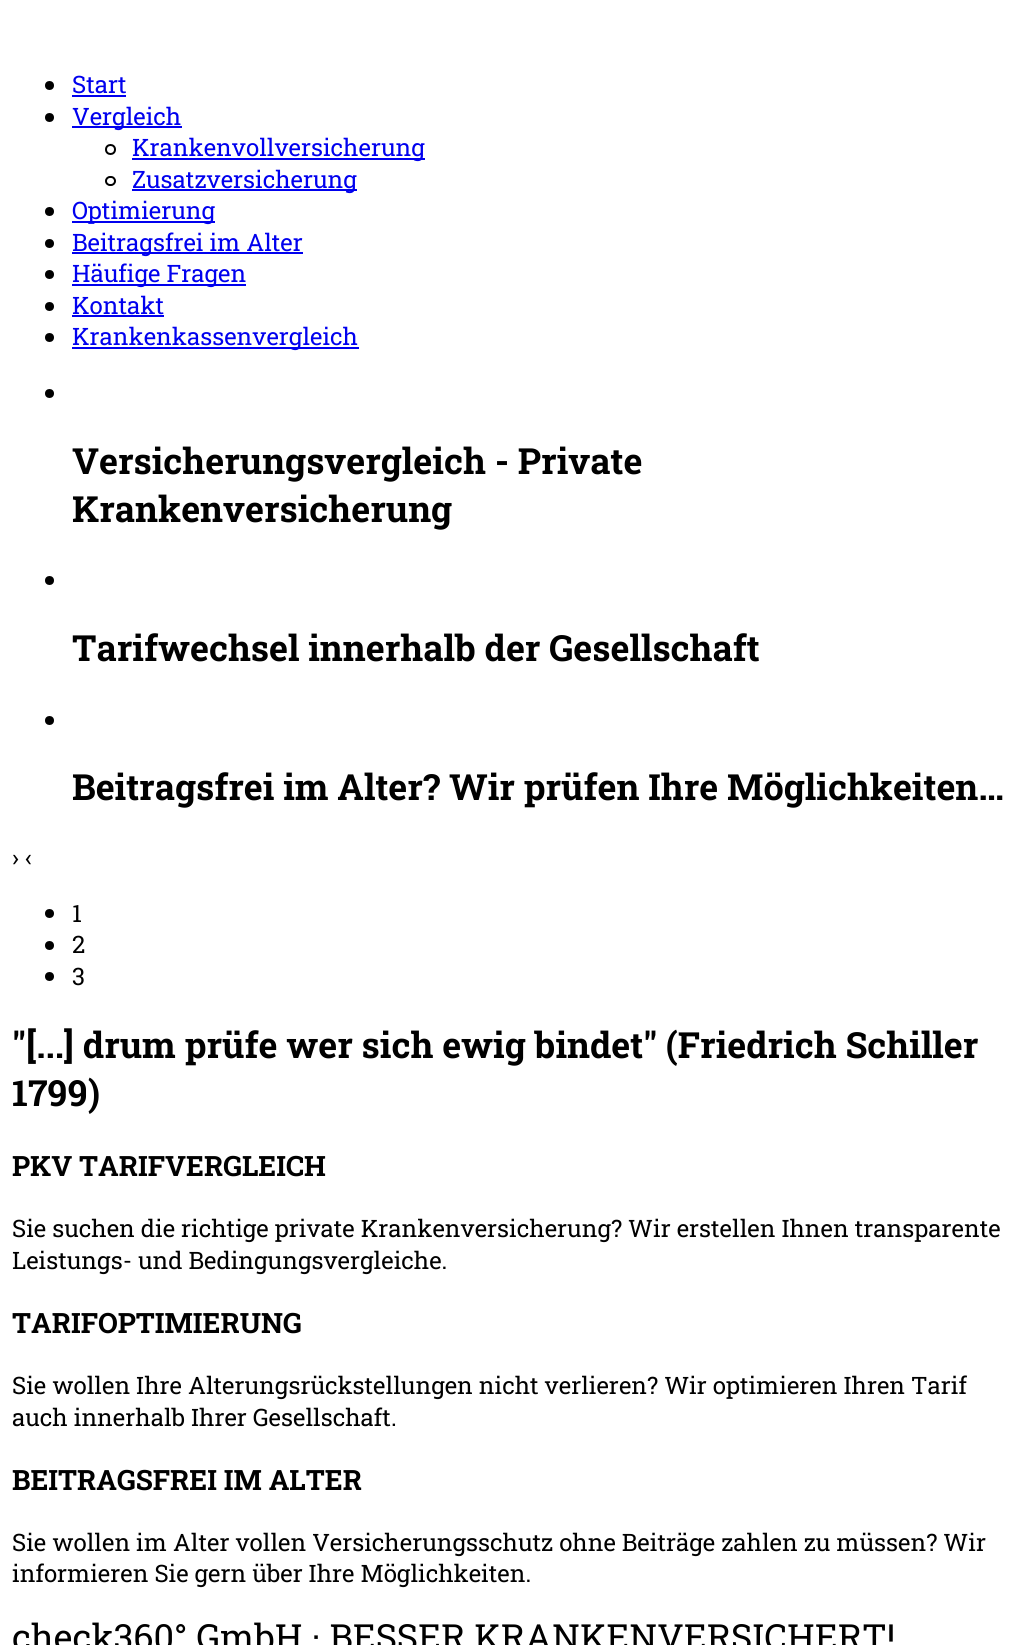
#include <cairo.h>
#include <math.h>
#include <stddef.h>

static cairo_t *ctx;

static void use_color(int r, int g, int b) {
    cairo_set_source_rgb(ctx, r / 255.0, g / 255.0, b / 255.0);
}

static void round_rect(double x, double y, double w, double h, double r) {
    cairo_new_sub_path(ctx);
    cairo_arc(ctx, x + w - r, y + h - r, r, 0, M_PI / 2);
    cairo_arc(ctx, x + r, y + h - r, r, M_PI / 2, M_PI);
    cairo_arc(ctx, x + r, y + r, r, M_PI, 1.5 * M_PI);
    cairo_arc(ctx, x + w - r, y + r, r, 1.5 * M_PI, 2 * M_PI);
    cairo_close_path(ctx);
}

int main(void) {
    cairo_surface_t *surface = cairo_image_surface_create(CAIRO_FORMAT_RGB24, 1028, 1645);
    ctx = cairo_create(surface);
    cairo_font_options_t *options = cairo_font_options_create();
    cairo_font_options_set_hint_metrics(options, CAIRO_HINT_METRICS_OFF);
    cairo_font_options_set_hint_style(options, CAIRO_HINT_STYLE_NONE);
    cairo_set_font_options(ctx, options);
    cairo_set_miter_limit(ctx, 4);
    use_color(255, 255, 255);
    cairo_paint(ctx);
    use_color(0, 0, 0);
    cairo_arc(ctx, 49.5, 85.5, 4.5, 0, 2 * M_PI);
    cairo_fill(ctx);
    cairo_select_font_face(ctx, "Roboto Slab", CAIRO_FONT_SLANT_NORMAL, CAIRO_FONT_WEIGHT_NORMAL);
    cairo_set_font_size(ctx, 24);
    use_color(0, 0, 238);
    cairo_move_to(ctx, 72, 93);
    cairo_show_text(ctx, "Start");
    cairo_rectangle(ctx, 72, 95, 54, 2);
    cairo_fill(ctx);
    use_color(0, 0, 0);
    cairo_arc(ctx, 49.5, 117.5, 4.5, 0, 2 * M_PI);
    cairo_fill(ctx);
    use_color(0, 0, 238);
    cairo_rectangle(ctx, 72, 126, 110, 2);
    cairo_fill(ctx);
    cairo_move_to(ctx, 72, 125);
    cairo_show_text(ctx, "Vergleich");
    cairo_new_path(ctx);
    cairo_arc(ctx, 110.5, 149.5, 4.5, 0, 2 * M_PI);
    use_color(0, 0, 0);
    cairo_stroke(ctx);
    use_color(0, 0, 238);
    cairo_rectangle(ctx, 132, 158, 293, 2);
    cairo_fill(ctx);
    cairo_move_to(ctx, 132, 156);
    cairo_show_text(ctx, "Krankenvollversicherung");
    round_rect(106, 177, 9, 8, 4);
    use_color(0, 0, 0);
    cairo_stroke(ctx);
    use_color(0, 0, 238);
    cairo_rectangle(ctx, 132, 189, 225, 2);
    cairo_fill(ctx);
    cairo_move_to(ctx, 132, 188);
    cairo_show_text(ctx, "Zusatzversicherung");
    use_color(0, 0, 0);
    cairo_new_path(ctx);
    cairo_arc(ctx, 49.5, 211.5, 4.5, 0, 2 * M_PI);
    cairo_fill(ctx);
    use_color(0, 0, 238);
    cairo_rectangle(ctx, 72, 221, 143, 2);
    cairo_fill(ctx);
    cairo_move_to(ctx, 72, 219);
    cairo_show_text(ctx, "Optimierung");
    use_color(0, 0, 0);
    cairo_new_path(ctx);
    cairo_arc(ctx, 49.5, 243.5, 4.5, 0, 2 * M_PI);
    cairo_fill(ctx);
    use_color(0, 0, 238);
    cairo_rectangle(ctx, 72, 252, 231, 2);
    cairo_fill(ctx);
    cairo_move_to(ctx, 72, 251);
    cairo_show_text(ctx, "Beitragsfrei im Alter");
    use_color(0, 0, 0);
    cairo_new_path(ctx);
    cairo_arc(ctx, 49.5, 274.5, 4.5, 0, 2 * M_PI);
    cairo_fill(ctx);
    use_color(0, 0, 238);
    cairo_rectangle(ctx, 72, 284, 174, 2);
    cairo_fill(ctx);
    cairo_move_to(ctx, 72, 282);
    cairo_show_text(ctx, "Häufige Fragen");
    use_color(0, 0, 0);
    cairo_new_path(ctx);
    cairo_arc(ctx, 49.5, 306.5, 4.5, 0, 2 * M_PI);
    cairo_fill(ctx);
    use_color(0, 0, 238);
    cairo_move_to(ctx, 72, 314);
    cairo_show_text(ctx, "Kontakt");
    cairo_rectangle(ctx, 72, 315, 92, 2);
    cairo_fill(ctx);
    use_color(0, 0, 0);
    cairo_arc(ctx, 49.5, 337.5, 4.5, 0, 2 * M_PI);
    cairo_fill(ctx);
    use_color(0, 0, 238);
    cairo_rectangle(ctx, 72, 347, 287, 2);
    cairo_fill(ctx);
    cairo_move_to(ctx, 72, 345);
    cairo_show_text(ctx, "Krankenkassenvergleich");
    use_color(0, 0, 0);
    cairo_new_path(ctx);
    cairo_arc(ctx, 49.5, 393.5, 4.5, 0, 2 * M_PI);
    cairo_fill(ctx);
    cairo_select_font_face(ctx, "Roboto Slab", CAIRO_FONT_SLANT_NORMAL, CAIRO_FONT_WEIGHT_BOLD);
    cairo_set_font_size(ctx, 36);
    cairo_move_to(ctx, 72, 474);
    cairo_show_text(ctx, "Versicherungsvergleich - Private");
    cairo_move_to(ctx, 72, 522);
    cairo_show_text(ctx, "Krankenversicherung");
    cairo_new_path(ctx);
    cairo_arc(ctx, 49.5, 580.5, 4.5, 0, 2 * M_PI);
    cairo_fill(ctx);
    cairo_move_to(ctx, 72, 661);
    cairo_show_text(ctx, "Tarifwechsel innerhalb der Gesellschaft");
    cairo_new_path(ctx);
    cairo_arc(ctx, 49.5, 720.5, 4.5, 0, 2 * M_PI);
    cairo_fill(ctx);
    cairo_move_to(ctx, 72, 800);
    cairo_show_text(ctx, "Beitragsfrei im Alter? Wir prüfen Ihre Möglichkeiten…");
    cairo_select_font_face(ctx, "Roboto Slab", CAIRO_FONT_SLANT_NORMAL, CAIRO_FONT_WEIGHT_NORMAL);
    cairo_set_font_size(ctx, 24);
    cairo_move_to(ctx, 12, 866);
    cairo_show_text(ctx, "› ‹");
    cairo_new_path(ctx);
    cairo_arc(ctx, 49.5, 913.5, 4.5, 0, 2 * M_PI);
    cairo_fill(ctx);
    cairo_move_to(ctx, 72, 922);
    cairo_show_text(ctx, "1");
    cairo_new_path(ctx);
    cairo_arc(ctx, 49.5, 945.5, 4.5, 0, 2 * M_PI);
    cairo_fill(ctx);
    cairo_move_to(ctx, 72, 953);
    cairo_show_text(ctx, "2");
    cairo_new_path(ctx);
    cairo_arc(ctx, 49.5, 976.5, 4.5, 0, 2 * M_PI);
    cairo_fill(ctx);
    cairo_move_to(ctx, 72, 985);
    cairo_show_text(ctx, "3");
    cairo_select_font_face(ctx, "Roboto Slab", CAIRO_FONT_SLANT_NORMAL, CAIRO_FONT_WEIGHT_BOLD);
    cairo_set_font_size(ctx, 36);
    cairo_move_to(ctx, 12, 1058);
    cairo_show_text(ctx, "\"[...] drum prüfe wer sich ewig bindet\" (Friedrich Schiller");
    cairo_move_to(ctx, 12, 1106);
    cairo_show_text(ctx, "1799)");
    cairo_set_font_size(ctx, 28);
    cairo_move_to(ctx, 12, 1176);
    cairo_show_text(ctx, "PKV TARIFVERGLEICH");
    cairo_select_font_face(ctx, "Roboto Slab", CAIRO_FONT_SLANT_NORMAL, CAIRO_FONT_WEIGHT_NORMAL);
    cairo_set_font_size(ctx, 24);
    cairo_move_to(ctx, 12, 1237);
    cairo_show_text(ctx, "Sie suchen die richtige private Krankenversicherung? Wir erstellen Ihnen transparente");
    cairo_move_to(ctx, 12, 1269);
    cairo_show_text(ctx, "Leistungs- und Bedingungsvergleiche.");
    cairo_select_font_face(ctx, "Roboto Slab", CAIRO_FONT_SLANT_NORMAL, CAIRO_FONT_WEIGHT_BOLD);
    cairo_set_font_size(ctx, 28);
    cairo_move_to(ctx, 12, 1333);
    cairo_show_text(ctx, "TARIFOPTIMIERUNG");
    cairo_select_font_face(ctx, "Roboto Slab", CAIRO_FONT_SLANT_NORMAL, CAIRO_FONT_WEIGHT_NORMAL);
    cairo_set_font_size(ctx, 24);
    cairo_move_to(ctx, 12, 1394);
    cairo_show_text(ctx, "Sie wollen Ihre Alterungsrückstellungen nicht verlieren? Wir optimieren Ihren Tarif");
    cairo_move_to(ctx, 12, 1426);
    cairo_show_text(ctx, "auch innerhalb Ihrer Gesellschaft.");
    cairo_select_font_face(ctx, "Roboto Slab", CAIRO_FONT_SLANT_NORMAL, CAIRO_FONT_WEIGHT_BOLD);
    cairo_set_font_size(ctx, 28);
    cairo_move_to(ctx, 12, 1490);
    cairo_show_text(ctx, "BEITRAGSFREI IM ALTER");
    cairo_select_font_face(ctx, "Roboto Slab", CAIRO_FONT_SLANT_NORMAL, CAIRO_FONT_WEIGHT_NORMAL);
    cairo_set_font_size(ctx, 24);
    cairo_move_to(ctx, 12, 1551);
    cairo_show_text(ctx, "Sie wollen im Alter vollen Versicherungsschutz ohne Beiträge zahlen zu müssen? Wir");
    cairo_move_to(ctx, 12, 1582);
    cairo_show_text(ctx, "informieren Sie gern über Ihre Möglichkeiten.");
    cairo_set_font_size(ctx, 36);
    cairo_move_to(ctx, 12, 1650);
    cairo_show_text(ctx, "check360° GmbH · BESSER KRANKENVERSICHERT!");
    cairo_surface_write_to_png(surface, "result.png");
    cairo_font_options_destroy(options);
    cairo_destroy(ctx);
    cairo_surface_destroy(surface);
    return 0;
}
